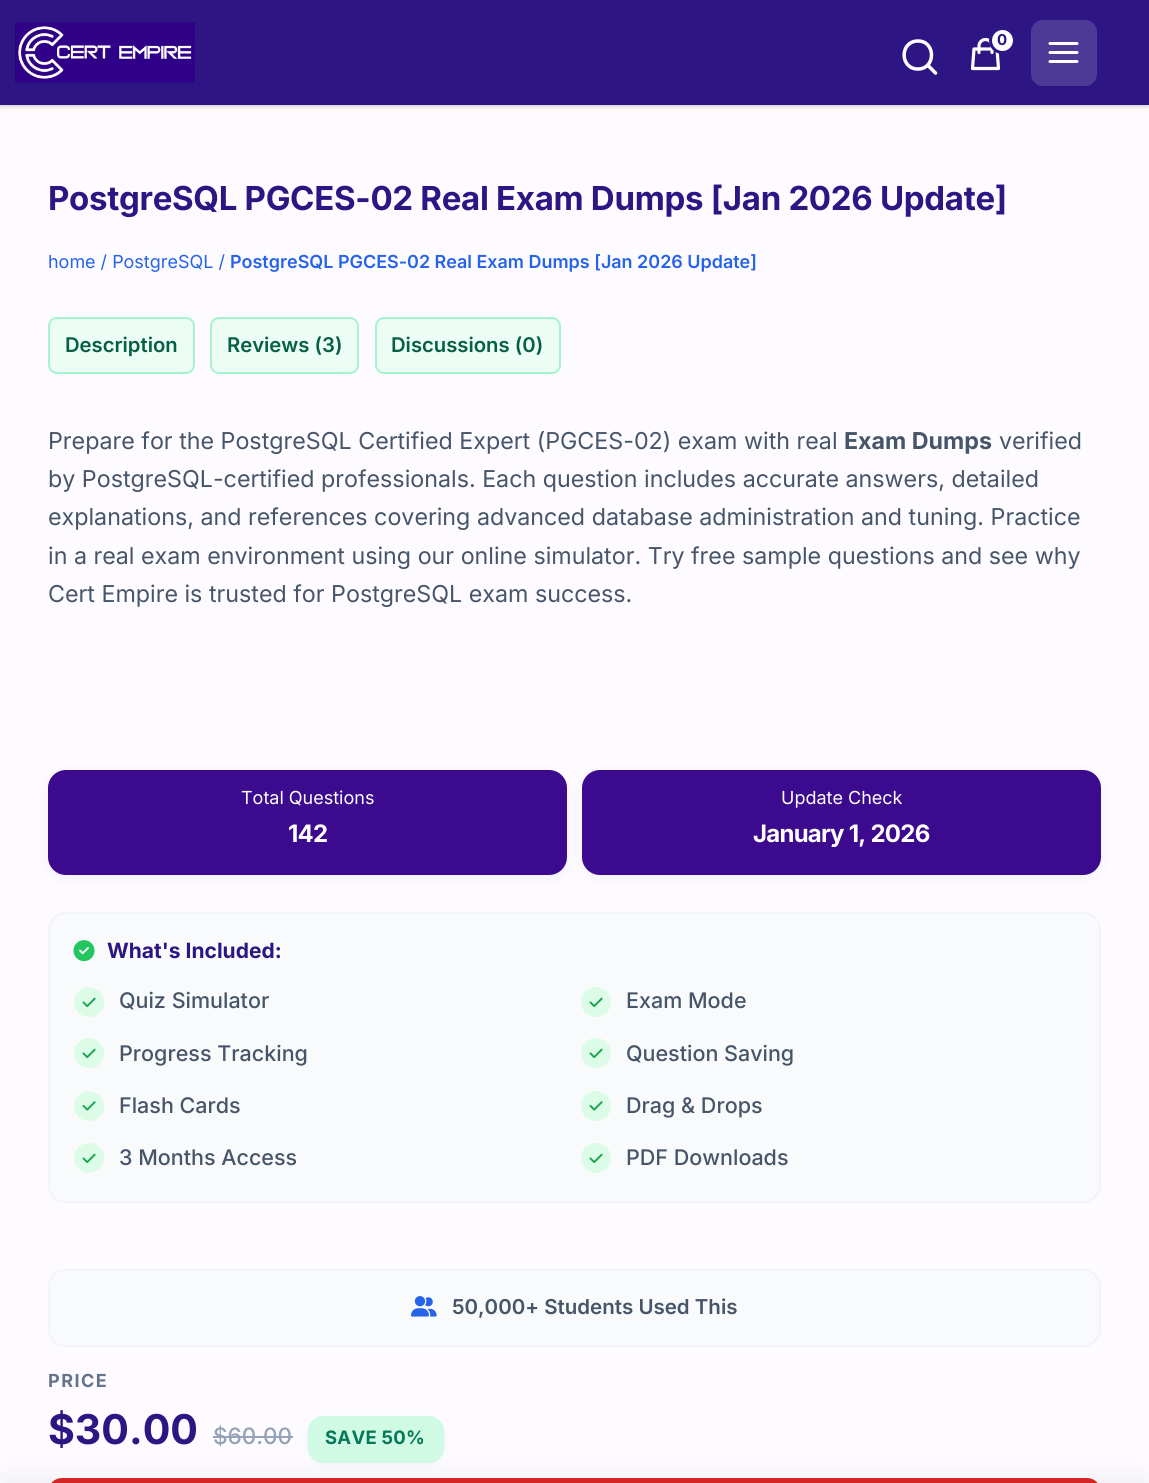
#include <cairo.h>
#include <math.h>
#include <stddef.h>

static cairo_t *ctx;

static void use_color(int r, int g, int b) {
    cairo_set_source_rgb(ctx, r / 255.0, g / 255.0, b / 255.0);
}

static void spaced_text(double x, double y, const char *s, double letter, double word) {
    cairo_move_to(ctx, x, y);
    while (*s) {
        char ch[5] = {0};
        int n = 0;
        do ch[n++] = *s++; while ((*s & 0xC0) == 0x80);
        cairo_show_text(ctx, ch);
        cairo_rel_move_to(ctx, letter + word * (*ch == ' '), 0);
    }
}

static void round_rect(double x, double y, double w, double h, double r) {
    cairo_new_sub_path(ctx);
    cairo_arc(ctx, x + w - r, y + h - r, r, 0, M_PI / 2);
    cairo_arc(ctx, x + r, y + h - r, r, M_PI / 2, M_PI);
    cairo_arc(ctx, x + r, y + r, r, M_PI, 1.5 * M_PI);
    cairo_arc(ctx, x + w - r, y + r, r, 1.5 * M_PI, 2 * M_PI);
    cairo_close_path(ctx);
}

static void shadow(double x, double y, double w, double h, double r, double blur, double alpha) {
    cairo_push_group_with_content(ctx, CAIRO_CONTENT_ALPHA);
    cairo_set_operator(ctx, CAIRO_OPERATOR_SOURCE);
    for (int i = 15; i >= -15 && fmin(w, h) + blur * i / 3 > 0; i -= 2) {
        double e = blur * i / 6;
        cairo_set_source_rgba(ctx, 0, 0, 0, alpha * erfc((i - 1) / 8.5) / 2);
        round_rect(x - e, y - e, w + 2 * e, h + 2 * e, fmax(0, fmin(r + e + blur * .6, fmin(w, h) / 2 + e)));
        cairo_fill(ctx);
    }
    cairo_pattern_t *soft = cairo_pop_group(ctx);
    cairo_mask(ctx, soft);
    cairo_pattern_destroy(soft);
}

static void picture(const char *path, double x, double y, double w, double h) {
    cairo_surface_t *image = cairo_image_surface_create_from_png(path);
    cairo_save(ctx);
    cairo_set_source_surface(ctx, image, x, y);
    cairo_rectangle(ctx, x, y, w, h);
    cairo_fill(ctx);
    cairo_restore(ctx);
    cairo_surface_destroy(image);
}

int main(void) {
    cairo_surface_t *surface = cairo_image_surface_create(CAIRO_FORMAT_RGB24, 1149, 1483);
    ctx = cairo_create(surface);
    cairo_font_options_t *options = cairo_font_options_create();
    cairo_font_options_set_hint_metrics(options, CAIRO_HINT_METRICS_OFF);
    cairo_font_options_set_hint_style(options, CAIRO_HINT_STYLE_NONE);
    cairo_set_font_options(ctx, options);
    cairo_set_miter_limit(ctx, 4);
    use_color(253, 251, 255);
    cairo_paint(ctx);
    use_color(0, 0, 0);
    shadow(0, 2, 1149, 105, 0, 1.5, 0.06);
    shadow(0, 2, 1149, 105, 0, 2, 0.1);
    use_color(45, 22, 132);
    cairo_rectangle(ctx, 0, 0, 1149, 105);
    cairo_fill(ctx);
    picture("img1.png", 15, 22, 180, 61);
    cairo_new_path(ctx);
    cairo_move_to(ctx, 918, 69);
    cairo_curve_to(ctx, 936, 69, 936, 41, 918, 41);
    cairo_curve_to(ctx, 899.5, 41, 899.5, 69, 918, 69);
    cairo_close_path(ctx);
    cairo_move_to(ctx, 935.5, 73);
    cairo_line_to(ctx, 927.5, 65);
    use_color(255, 255, 255);
    cairo_set_line_width(ctx, 3.5);
    cairo_set_line_cap(ctx, CAIRO_LINE_CAP_ROUND);
    cairo_set_line_join(ctx, CAIRO_LINE_JOIN_ROUND);
    cairo_stroke(ctx);
    cairo_new_path(ctx);
    cairo_move_to(ctx, 992, 52.5);
    cairo_line_to(ctx, 992, 46);
    cairo_curve_to(ctx, 992, 42.5, 989, 39.5, 985.5, 39.5);
    cairo_curve_to(ctx, 982, 39.5, 979, 42.5, 979, 46);
    cairo_line_to(ctx, 979, 52.5);
    cairo_move_to(ctx, 974, 49);
    cairo_line_to(ctx, 997, 49);
    cairo_line_to(ctx, 998.5, 68.5);
    cairo_line_to(ctx, 972.5, 68.5);
    cairo_close_path(ctx);
    cairo_set_line_width(ctx, 3.2);
    cairo_stroke(ctx);
    cairo_arc(ctx, 1002.5, 40.5, 12, 0, 2 * M_PI);
    cairo_fill_preserve(ctx);
    use_color(45, 22, 132);
    cairo_set_line_width(ctx, 3);
    cairo_set_line_cap(ctx, CAIRO_LINE_CAP_BUTT);
    cairo_set_line_join(ctx, CAIRO_LINE_JOIN_MITER);
    cairo_stroke(ctx);
    cairo_select_font_face(ctx, "Inter", CAIRO_FONT_SLANT_NORMAL, CAIRO_FONT_WEIGHT_BOLD);
    cairo_set_font_size(ctx, 15);
    cairo_move_to(ctx, 997, 45);
    cairo_show_text(ctx, "0");
    use_color(77, 57, 150);
    round_rect(1031, 20, 66, 66, 12);
    cairo_fill(ctx);
    cairo_new_path(ctx);
    cairo_move_to(ctx, 1050, 52.5);
    cairo_line_to(ctx, 1077, 52.5);
    cairo_move_to(ctx, 1050, 43.5);
    cairo_line_to(ctx, 1077, 43.5);
    cairo_move_to(ctx, 1050, 61.5);
    cairo_line_to(ctx, 1077, 61.5);
    use_color(255, 255, 255);
    cairo_set_line_cap(ctx, CAIRO_LINE_CAP_ROUND);
    cairo_set_line_join(ctx, CAIRO_LINE_JOIN_ROUND);
    cairo_stroke(ctx);
    cairo_set_font_size(ctx, 33);
    use_color(45, 22, 132);
    spaced_text(48, 210, "PostgreSQL PGCES-02 Real Exam Dumps [Jan 2026 Update]", -0.3, 0);
    cairo_select_font_face(ctx, "Inter", CAIRO_FONT_SLANT_NORMAL, CAIRO_FONT_WEIGHT_NORMAL);
    cairo_set_font_size(ctx, 17.95);
    use_color(37, 99, 235);
    cairo_move_to(ctx, 48, 268);
    cairo_show_text(ctx, "home / PostgreSQL /");
    cairo_select_font_face(ctx, "Inter SemiBold", CAIRO_FONT_SLANT_NORMAL, CAIRO_FONT_WEIGHT_NORMAL);
    cairo_move_to(ctx, 230, 268);
    cairo_show_text(ctx, "PostgreSQL PGCES-02 Real Exam Dumps [Jan 2026 Update]");
    use_color(236, 253, 245);
    round_rect(49, 318, 145, 55, 8);
    cairo_fill_preserve(ctx);
    use_color(167, 243, 208);
    cairo_set_line_width(ctx, 2);
    cairo_set_line_cap(ctx, CAIRO_LINE_CAP_BUTT);
    cairo_set_line_join(ctx, CAIRO_LINE_JOIN_MITER);
    cairo_stroke(ctx);
    cairo_set_font_size(ctx, 20.25);
    use_color(6, 95, 70);
    cairo_move_to(ctx, 65, 352);
    cairo_show_text(ctx, "Description");
    use_color(236, 253, 245);
    round_rect(211, 318, 147, 55, 8);
    cairo_fill_preserve(ctx);
    use_color(167, 243, 208);
    cairo_stroke(ctx);
    use_color(6, 95, 70);
    cairo_move_to(ctx, 227, 352);
    cairo_show_text(ctx, "Reviews (3)");
    use_color(236, 253, 245);
    round_rect(376, 318, 184, 55, 8);
    cairo_fill_preserve(ctx);
    use_color(167, 243, 208);
    cairo_stroke(ctx);
    use_color(6, 95, 70);
    cairo_move_to(ctx, 391, 352);
    cairo_show_text(ctx, "Discussions (0)");
    cairo_select_font_face(ctx, "Inter", CAIRO_FONT_SLANT_NORMAL, CAIRO_FONT_WEIGHT_NORMAL);
    cairo_set_font_size(ctx, 23.25);
    use_color(71, 85, 105);
    cairo_move_to(ctx, 48, 449);
    cairo_show_text(ctx, "Prepare for the PostgreSQL Certified Expert (PGCES-02) exam with real");
    cairo_select_font_face(ctx, "Inter", CAIRO_FONT_SLANT_NORMAL, CAIRO_FONT_WEIGHT_BOLD);
    cairo_move_to(ctx, 844, 449);
    cairo_show_text(ctx, "Exam Dumps");
    cairo_select_font_face(ctx, "Inter", CAIRO_FONT_SLANT_NORMAL, CAIRO_FONT_WEIGHT_NORMAL);
    cairo_move_to(ctx, 999, 449);
    cairo_show_text(ctx, "verified");
    cairo_move_to(ctx, 48, 487);
    cairo_show_text(ctx, "by PostgreSQL-certified professionals. Each question includes accurate answers, detailed");
    cairo_move_to(ctx, 48, 525);
    cairo_show_text(ctx, "explanations, and references covering advanced database administration and tuning. Practice");
    cairo_move_to(ctx, 48, 564);
    cairo_show_text(ctx, "in a real exam environment using our online simulator. Try free sample questions and see why");
    cairo_move_to(ctx, 48, 602);
    cairo_show_text(ctx, "Cert Empire is trusted for PostgreSQL exam success.");
    use_color(44, 18, 140);
    shadow(48, 773, 519, 105, 18, 6, 0.06);
    use_color(59, 10, 142);
    round_rect(48, 770, 519, 105, 18);
    cairo_fill(ctx);
    cairo_set_font_size(ctx, 18);
    use_color(255, 255, 255);
    cairo_move_to(ctx, 241, 804);
    cairo_show_text(ctx, "Total Questions");
    cairo_select_font_face(ctx, "Inter", CAIRO_FONT_SLANT_NORMAL, CAIRO_FONT_WEIGHT_BOLD);
    cairo_set_font_size(ctx, 24);
    spaced_text(288, 842, "142", -0.75, 0);
    use_color(44, 18, 140);
    shadow(582, 773, 519, 105, 18, 6, 0.06);
    use_color(59, 10, 142);
    round_rect(582, 770, 519, 105, 18);
    cairo_fill(ctx);
    cairo_select_font_face(ctx, "Inter", CAIRO_FONT_SLANT_NORMAL, CAIRO_FONT_WEIGHT_NORMAL);
    cairo_set_font_size(ctx, 18);
    use_color(255, 255, 255);
    cairo_move_to(ctx, 781, 804);
    cairo_show_text(ctx, "Update Check");
    cairo_select_font_face(ctx, "Inter", CAIRO_FONT_SLANT_NORMAL, CAIRO_FONT_WEIGHT_BOLD);
    cairo_set_font_size(ctx, 24);
    spaced_text(753, 842, "January 1, 2026", -0.75, 0);
    use_color(249, 250, 251);
    round_rect(49, 913, 1051, 289, 17);
    cairo_fill_preserve(ctx);
    use_color(243, 244, 246);
    cairo_stroke(ctx);
    picture("img2.png", 73, 940, 22, 22);
    cairo_set_font_size(ctx, 21);
    use_color(45, 22, 132);
    cairo_move_to(ctx, 107, 958);
    cairo_show_text(ctx, "What's Included:");
    use_color(220, 252, 231);
    cairo_new_path(ctx);
    cairo_arc(ctx, 89, 1002, 15, 0, 2 * M_PI);
    cairo_fill(ctx);
    picture("img3.png", 82, 997, 14, 10);
    cairo_select_font_face(ctx, "Inter Medium", CAIRO_FONT_SLANT_NORMAL, CAIRO_FONT_WEIGHT_NORMAL);
    cairo_set_font_size(ctx, 21.5);
    use_color(71, 85, 105);
    cairo_move_to(ctx, 119, 1008);
    cairo_show_text(ctx, "Quiz Simulator");
    use_color(220, 252, 231);
    cairo_new_path(ctx);
    cairo_arc(ctx, 596, 1002, 15, 0, 2 * M_PI);
    cairo_fill(ctx);
    picture("img3.png", 589, 997, 14, 10);
    use_color(71, 85, 105);
    cairo_move_to(ctx, 626, 1008);
    cairo_show_text(ctx, "Exam Mode");
    use_color(220, 252, 231);
    cairo_new_path(ctx);
    cairo_arc(ctx, 89, 1053, 15, 0, 2 * M_PI);
    cairo_fill(ctx);
    picture("img3.png", 82, 1048, 14, 10);
    use_color(71, 85, 105);
    cairo_move_to(ctx, 119, 1061);
    cairo_show_text(ctx, "Progress Tracking");
    use_color(220, 252, 231);
    cairo_new_path(ctx);
    cairo_arc(ctx, 596, 1053, 15, 0, 2 * M_PI);
    cairo_fill(ctx);
    picture("img3.png", 589, 1048, 14, 10);
    use_color(71, 85, 105);
    cairo_move_to(ctx, 626, 1061);
    cairo_show_text(ctx, "Question Saving");
    use_color(220, 252, 231);
    cairo_new_path(ctx);
    cairo_arc(ctx, 89, 1106, 15, 0, 2 * M_PI);
    cairo_fill(ctx);
    picture("img4.png", 82, 1101, 14, 10);
    use_color(71, 85, 105);
    cairo_move_to(ctx, 119, 1113);
    cairo_show_text(ctx, "Flash Cards");
    use_color(220, 252, 231);
    cairo_new_path(ctx);
    cairo_arc(ctx, 596, 1106, 15, 0, 2 * M_PI);
    cairo_fill(ctx);
    picture("img4.png", 589, 1101, 14, 10);
    use_color(71, 85, 105);
    cairo_move_to(ctx, 626, 1113);
    cairo_show_text(ctx, "Drag & Drops");
    use_color(220, 252, 231);
    cairo_new_path(ctx);
    cairo_arc(ctx, 89, 1158, 15, 0, 2 * M_PI);
    cairo_fill(ctx);
    picture("img3.png", 82, 1153, 14, 10);
    use_color(71, 85, 105);
    cairo_move_to(ctx, 119, 1165);
    cairo_show_text(ctx, "3 Months Access");
    use_color(220, 252, 231);
    cairo_new_path(ctx);
    cairo_arc(ctx, 596, 1158, 15, 0, 2 * M_PI);
    cairo_fill(ctx);
    picture("img3.png", 589, 1153, 14, 10);
    use_color(71, 85, 105);
    cairo_move_to(ctx, 626, 1165);
    cairo_show_text(ctx, "PDF Downloads");
    use_color(248, 250, 252);
    round_rect(49, 1270, 1051, 76, 17);
    cairo_fill_preserve(ctx);
    use_color(243, 244, 246);
    cairo_stroke(ctx);
    picture("img5.png", 411, 1296, 26, 21);
    cairo_select_font_face(ctx, "Inter SemiBold", CAIRO_FONT_SLANT_NORMAL, CAIRO_FONT_WEIGHT_NORMAL);
    cairo_set_font_size(ctx, 20.5);
    use_color(71, 85, 105);
    cairo_move_to(ctx, 452, 1314);
    cairo_show_text(ctx, "50,000+ Students Used This");
    cairo_select_font_face(ctx, "Inter", CAIRO_FONT_SLANT_NORMAL, CAIRO_FONT_WEIGHT_BOLD);
    cairo_set_font_size(ctx, 18);
    use_color(100, 116, 139);
    spaced_text(48, 1387, "PRICE", 1.5, 0);
    cairo_set_font_size(ctx, 41);
    use_color(45, 22, 132);
    cairo_move_to(ctx, 48, 1444);
    cairo_show_text(ctx, "$30.00");
    cairo_select_font_face(ctx, "Inter Medium", CAIRO_FONT_SLANT_NORMAL, CAIRO_FONT_WEIGHT_NORMAL);
    cairo_set_font_size(ctx, 22.5);
    use_color(148, 163, 184);
    cairo_move_to(ctx, 213, 1444);
    cairo_show_text(ctx, "$60.00");
    cairo_rectangle(ctx, 213, 1436, 80, 2);
    cairo_fill(ctx);
    use_color(4, 120, 87);
    shadow(308, 1418, 136, 46, 15, 3, 0.06);
    use_color(209, 250, 229);
    round_rect(308, 1416, 136, 47, 15);
    cairo_fill(ctx);
    cairo_select_font_face(ctx, "Inter", CAIRO_FONT_SLANT_NORMAL, CAIRO_FONT_WEIGHT_BOLD);
    cairo_set_font_size(ctx, 18.5);
    use_color(4, 120, 87);
    spaced_text(325, 1444, "SAVE 50%", 0.25, 0);
    use_color(220, 38, 38);
    round_rect(48, 1478, 1053, 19, 14);
    cairo_fill(ctx);
    use_color(15, 23, 42);
    shadow(8, 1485, 1134, 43, 0, 15, 0.1);
    cairo_surface_write_to_png(surface, "result.png");
    cairo_font_options_destroy(options);
    cairo_destroy(ctx);
    cairo_surface_destroy(surface);
    return 0;
}
